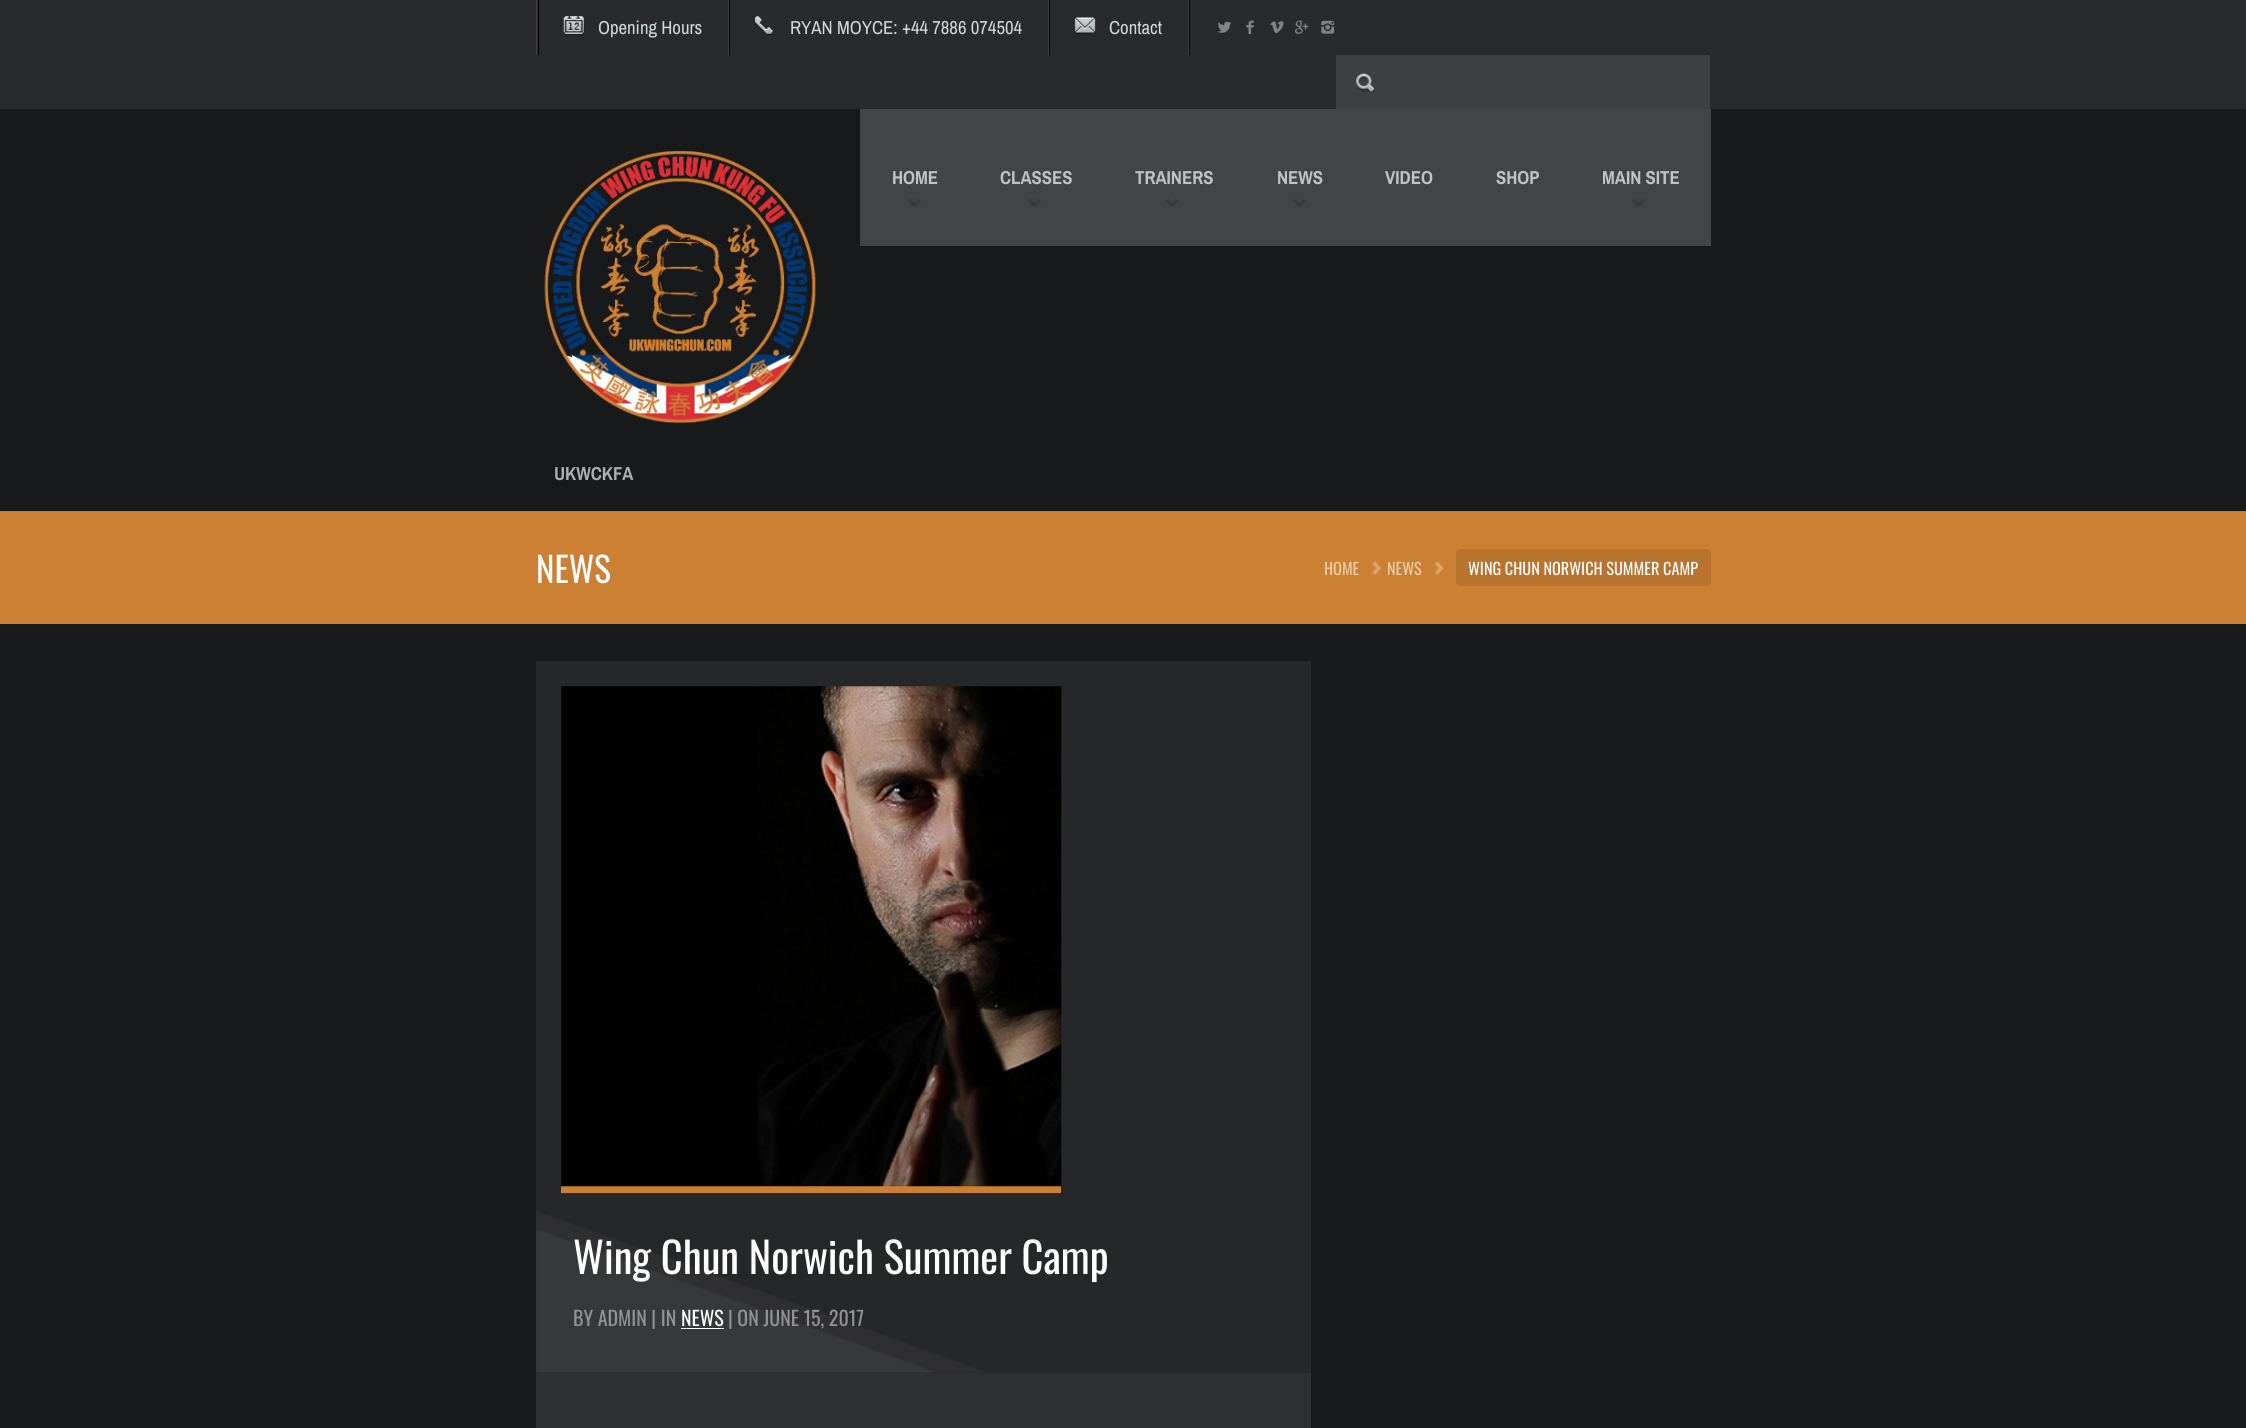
#include <cairo.h>
#include <math.h>
#include <stddef.h>

static cairo_t *ctx;

static void use_color(int r, int g, int b) {
    cairo_set_source_rgb(ctx, r / 255.0, g / 255.0, b / 255.0);
}

static void round_rect(double x, double y, double w, double h, double r) {
    cairo_new_sub_path(ctx);
    cairo_arc(ctx, x + w - r, y + h - r, r, 0, M_PI / 2);
    cairo_arc(ctx, x + r, y + h - r, r, M_PI / 2, M_PI);
    cairo_arc(ctx, x + r, y + r, r, M_PI, 1.5 * M_PI);
    cairo_arc(ctx, x + w - r, y + r, r, 1.5 * M_PI, 2 * M_PI);
    cairo_close_path(ctx);
}

static void picture(const char *path, double x, double y, double w, double h) {
    cairo_surface_t *image = cairo_image_surface_create_from_png(path);
    cairo_save(ctx);
    cairo_set_source_surface(ctx, image, x, y);
    cairo_rectangle(ctx, x, y, w, h);
    cairo_fill(ctx);
    cairo_restore(ctx);
    cairo_surface_destroy(image);
}

int main(void) {
    cairo_surface_t *surface = cairo_image_surface_create(CAIRO_FORMAT_RGB24, 2246, 1428);
    ctx = cairo_create(surface);
    cairo_font_options_t *options = cairo_font_options_create();
    cairo_font_options_set_hint_metrics(options, CAIRO_HINT_METRICS_OFF);
    cairo_font_options_set_hint_style(options, CAIRO_HINT_STYLE_NONE);
    cairo_set_font_options(ctx, options);
    cairo_set_miter_limit(ctx, 4);
    use_color(24, 25, 26);
    cairo_paint(ctx);
    use_color(41, 42, 44);
    cairo_rectangle(ctx, 0, 0, 2246, 109);
    cairo_fill(ctx);
    use_color(0, 0, 0);
    cairo_rectangle(ctx, 1189, 0, 1, 55);
    cairo_fill(ctx);
    use_color(64, 66, 68);
    cairo_rectangle(ctx, 536, 0, 1, 55);
    cairo_fill(ctx);
    cairo_rectangle(ctx, 728, 0, 1, 55);
    cairo_fill(ctx);
    use_color(0, 0, 0);
    cairo_rectangle(ctx, 538, 0, 1, 55);
    cairo_fill(ctx);
    picture("img1.png", 563, 16, 22, 20);
    cairo_select_font_face(ctx, "Archivo Narrow", CAIRO_FONT_SLANT_NORMAL, CAIRO_FONT_WEIGHT_NORMAL);
    cairo_set_font_size(ctx, 18.75);
    use_color(211, 218, 220);
    cairo_move_to(ctx, 598, 34);
    cairo_show_text(ctx, "Opening Hours");
    use_color(64, 66, 68);
    cairo_rectangle(ctx, 1048, 0, 1, 55);
    cairo_fill(ctx);
    use_color(0, 0, 0);
    cairo_rectangle(ctx, 729, 0, 1, 55);
    cairo_fill(ctx);
    picture("img2.png", 754, 16, 19, 20);
    use_color(211, 218, 220);
    cairo_move_to(ctx, 790, 34);
    cairo_show_text(ctx, "RYAN MOYCE: +44 7886 074504");
    use_color(64, 66, 68);
    cairo_rectangle(ctx, 1188, 0, 1, 55);
    cairo_fill(ctx);
    use_color(0, 0, 0);
    cairo_rectangle(ctx, 1049, 0, 1, 55);
    cairo_fill(ctx);
    picture("img3.png", 1074, 17, 22, 18);
    use_color(211, 218, 220);
    cairo_move_to(ctx, 1109, 34);
    cairo_show_text(ctx, "Contact");
    picture("img4.png", 1217, 21, 14, 12);
    picture("img5.png", 1246, 20, 8, 14);
    picture("img6.png", 1270, 21, 14, 13);
    picture("img7.png", 1295, 20, 14, 14);
    picture("img8.png", 1321, 20, 14, 14);
    use_color(62, 63, 64);
    cairo_rectangle(ctx, 1336, 55, 374, 54);
    cairo_fill(ctx);
    picture("img9.png", 1355, 73, 20, 21);
    use_color(66, 68, 69);
    cairo_rectangle(ctx, 860, 109, 851, 137);
    cairo_fill(ctx);
    cairo_select_font_face(ctx, "Archivo Narrow", CAIRO_FONT_SLANT_NORMAL, CAIRO_FONT_WEIGHT_BOLD);
    use_color(194, 194, 194);
    cairo_move_to(ctx, 892, 184);
    cairo_show_text(ctx, "HOME");
    picture("img10.png", 908, 199, 13, 8);
    cairo_move_to(ctx, 1000, 184);
    cairo_show_text(ctx, "CLASSES");
    picture("img10.png", 1028, 199, 13, 8);
    cairo_move_to(ctx, 1135, 184);
    cairo_show_text(ctx, "TRAINERS");
    picture("img11.png", 1165, 199, 14, 8);
    cairo_move_to(ctx, 1277, 184);
    cairo_show_text(ctx, "NEWS");
    picture("img10.png", 1293, 199, 13, 8);
    cairo_move_to(ctx, 1385, 184);
    cairo_show_text(ctx, "VIDEO");
    cairo_move_to(ctx, 1496, 184);
    cairo_show_text(ctx, "SHOP");
    cairo_move_to(ctx, 1602, 184);
    cairo_show_text(ctx, "MAIN SITE");
    picture("img12.png", 1631, 199, 14, 8);
    picture("img13.png", 544, 150, 272, 274);
    use_color(174, 174, 174);
    cairo_move_to(ctx, 554, 480);
    cairo_show_text(ctx, "UKWCKFA");
    use_color(204, 128, 51);
    cairo_rectangle(ctx, 0, 511, 2246, 113);
    cairo_fill(ctx);
    cairo_select_font_face(ctx, "Oswald", CAIRO_FONT_SLANT_NORMAL, CAIRO_FONT_WEIGHT_NORMAL);
    cairo_set_font_size(ctx, 35);
    use_color(255, 255, 255);
    cairo_move_to(ctx, 536, 583);
    cairo_show_text(ctx, "NEWS");
    cairo_set_font_size(ctx, 16.25);
    use_color(235, 204, 173);
    cairo_move_to(ctx, 1324, 575);
    cairo_show_text(ctx, "HOME");
    picture("img14.png", 1372, 561, 10, 14);
    cairo_move_to(ctx, 1387, 575);
    cairo_show_text(ctx, "NEWS");
    picture("img15.png", 1435, 561, 9, 14);
    use_color(184, 115, 46);
    round_rect(1456, 549, 255, 37, 4);
    cairo_fill(ctx);
    use_color(255, 255, 255);
    cairo_move_to(ctx, 1468, 575);
    cairo_show_text(ctx, "WING CHUN NORWICH SUMMER CAMP");
    use_color(38, 39, 41);
    cairo_rectangle(ctx, 536, 661, 775, 712);
    cairo_fill(ctx);
    picture("img16.png", 536, 1211, 449, 162);
    use_color(204, 128, 51);
    cairo_rectangle(ctx, 561, 1186, 500, 7);
    cairo_fill(ctx);
    picture("img17.png", 561, 686, 501, 501);
    cairo_set_font_size(ctx, 42.5);
    use_color(255, 255, 255);
    cairo_move_to(ctx, 573, 1274);
    cairo_show_text(ctx, "Wing Chun Norwich Summer Camp");
    cairo_set_font_size(ctx, 20);
    use_color(147, 147, 147);
    cairo_move_to(ctx, 573, 1326);
    cairo_show_text(ctx, "BY ADMIN | IN");
    use_color(255, 255, 255);
    cairo_move_to(ctx, 681, 1326);
    cairo_show_text(ctx, "NEWS");
    cairo_rectangle(ctx, 681, 1328, 43, 1);
    cairo_fill(ctx);
    use_color(147, 147, 147);
    cairo_move_to(ctx, 728, 1326);
    cairo_show_text(ctx, "| ON JUNE 15, 2017");
    use_color(47, 48, 49);
    cairo_rectangle(ctx, 536, 1373, 775, 55);
    cairo_fill(ctx);
    cairo_surface_write_to_png(surface, "result.png");
    cairo_font_options_destroy(options);
    cairo_destroy(ctx);
    cairo_surface_destroy(surface);
    return 0;
}
